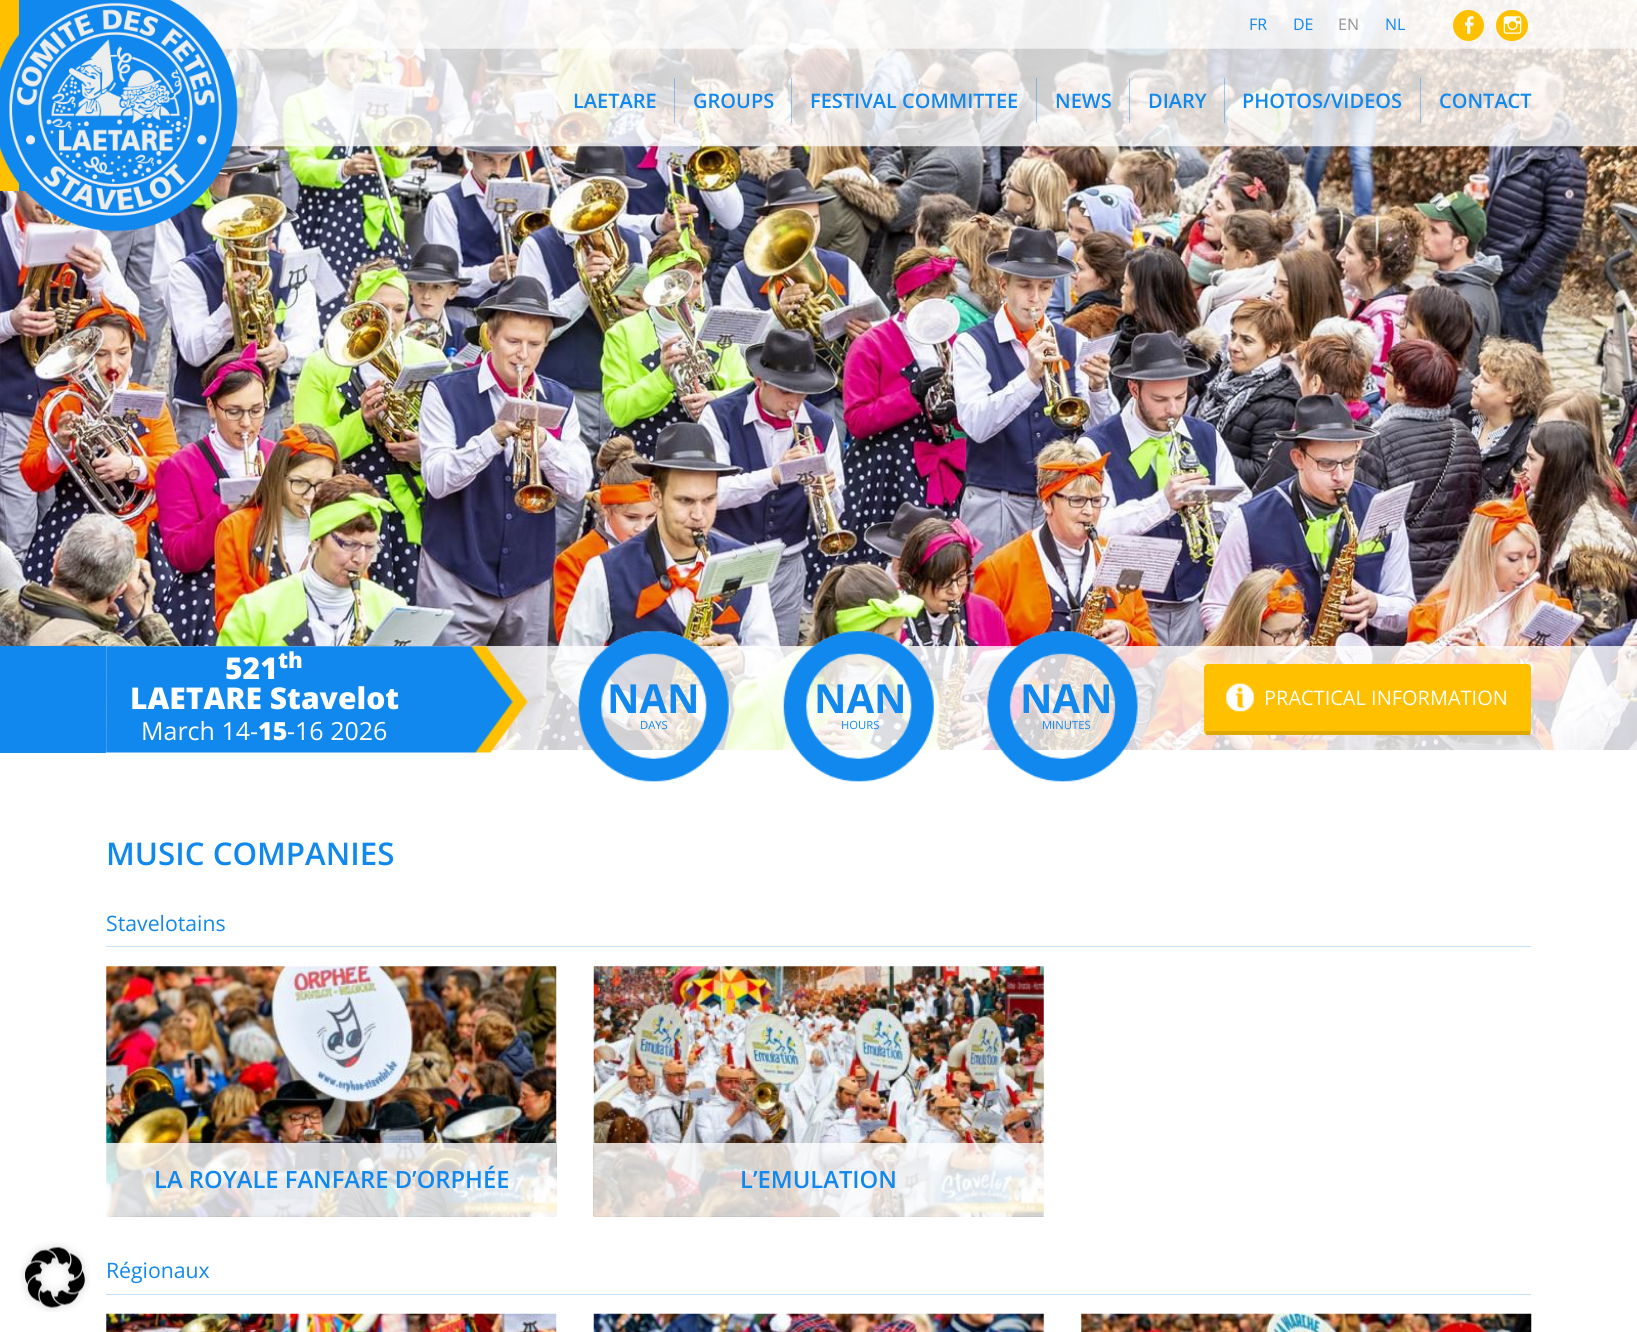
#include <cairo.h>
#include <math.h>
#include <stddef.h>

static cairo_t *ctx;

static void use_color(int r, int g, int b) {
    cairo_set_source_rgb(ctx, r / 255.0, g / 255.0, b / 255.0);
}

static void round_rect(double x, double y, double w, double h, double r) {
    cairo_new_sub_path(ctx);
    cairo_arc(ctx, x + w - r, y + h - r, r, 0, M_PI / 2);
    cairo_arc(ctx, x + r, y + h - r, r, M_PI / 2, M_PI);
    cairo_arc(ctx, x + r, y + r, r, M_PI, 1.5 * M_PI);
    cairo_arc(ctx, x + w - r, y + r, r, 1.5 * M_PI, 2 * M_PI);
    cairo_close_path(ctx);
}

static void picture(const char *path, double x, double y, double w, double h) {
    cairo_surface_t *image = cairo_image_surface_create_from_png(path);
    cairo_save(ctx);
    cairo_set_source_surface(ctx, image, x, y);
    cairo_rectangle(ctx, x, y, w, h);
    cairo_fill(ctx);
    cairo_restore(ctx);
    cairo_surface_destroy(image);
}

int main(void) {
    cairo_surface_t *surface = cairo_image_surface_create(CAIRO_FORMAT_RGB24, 1637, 1332);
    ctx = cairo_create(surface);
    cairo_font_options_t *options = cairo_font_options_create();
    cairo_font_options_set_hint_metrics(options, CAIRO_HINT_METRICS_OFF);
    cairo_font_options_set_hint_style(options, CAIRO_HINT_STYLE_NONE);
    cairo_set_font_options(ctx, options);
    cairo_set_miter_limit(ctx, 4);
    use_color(255, 255, 255);
    cairo_paint(ctx);
    picture("img1.png", 20, 1242, 70, 70);
    picture("img2.png", 0, 0, 1637, 750);
    picture("img3.png", 169, 0, 1468, 147);
    cairo_select_font_face(ctx, "Open Sans", CAIRO_FONT_SLANT_NORMAL, CAIRO_FONT_WEIGHT_NORMAL);
    cairo_set_font_size(ctx, 16);
    use_color(16, 136, 237);
    cairo_move_to(ctx, 1249, 30);
    cairo_show_text(ctx, "FR");
    cairo_move_to(ctx, 1293, 30);
    cairo_show_text(ctx, "DE");
    use_color(148, 148, 148);
    cairo_move_to(ctx, 1338, 30);
    cairo_show_text(ctx, "EN");
    use_color(16, 136, 237);
    cairo_move_to(ctx, 1385, 30);
    cairo_show_text(ctx, "NL");
    use_color(255, 192, 0);
    cairo_new_path(ctx);
    cairo_arc(ctx, 1468.5, 25.5, 15.5, 0, 2 * M_PI);
    cairo_fill(ctx);
    picture("img4.png", 1465, 16, 9, 18);
    round_rect(1496, 10, 32, 31, 15.5);
    cairo_fill(ctx);
    picture("img5.png", 1503, 16, 19, 18);
    use_color(16, 136, 237);
    cairo_rectangle(ctx, 19, 0, 44, 191);
    cairo_fill(ctx);
    use_color(255, 192, 0);
    cairo_rectangle(ctx, 0, 0, 19, 191);
    cairo_fill(ctx);
    picture("img6.png", 0, 0, 238, 232);
    cairo_set_source_rgba(ctx, 0.063, 0.533, 0.929, 0.4);
    cairo_rectangle(ctx, 674, 78, 1, 45);
    cairo_fill(ctx);
    cairo_select_font_face(ctx, "Open Sans SemiBold", CAIRO_FONT_SLANT_NORMAL, CAIRO_FONT_WEIGHT_NORMAL);
    cairo_set_font_size(ctx, 20);
    use_color(16, 136, 237);
    cairo_move_to(ctx, 573, 108);
    cairo_show_text(ctx, "LAETARE");
    cairo_set_source_rgba(ctx, 0.063, 0.533, 0.929, 0.4);
    cairo_rectangle(ctx, 791, 78, 1, 45);
    cairo_fill(ctx);
    use_color(16, 136, 237);
    cairo_move_to(ctx, 693, 108);
    cairo_show_text(ctx, "GROUPS");
    cairo_set_source_rgba(ctx, 0.063, 0.533, 0.929, 0.4);
    cairo_rectangle(ctx, 1036, 78, 1, 45);
    cairo_fill(ctx);
    use_color(16, 136, 237);
    cairo_move_to(ctx, 810, 108);
    cairo_show_text(ctx, "FESTIVAL COMMITTEE");
    cairo_set_source_rgba(ctx, 0.063, 0.533, 0.929, 0.4);
    cairo_rectangle(ctx, 1129, 78, 1, 45);
    cairo_fill(ctx);
    use_color(16, 136, 237);
    cairo_move_to(ctx, 1055, 108);
    cairo_show_text(ctx, "NEWS");
    cairo_set_source_rgba(ctx, 0.063, 0.533, 0.929, 0.4);
    cairo_rectangle(ctx, 1224, 78, 1, 45);
    cairo_fill(ctx);
    use_color(16, 136, 237);
    cairo_move_to(ctx, 1148, 108);
    cairo_show_text(ctx, "DIARY");
    cairo_set_source_rgba(ctx, 0.063, 0.533, 0.929, 0.4);
    cairo_rectangle(ctx, 1420, 78, 1, 45);
    cairo_fill(ctx);
    use_color(16, 136, 237);
    cairo_move_to(ctx, 1242, 108);
    cairo_show_text(ctx, "PHOTOS/VIDEOS");
    cairo_move_to(ctx, 1439, 108);
    cairo_show_text(ctx, "CONTACT");
    cairo_set_source_rgba(ctx, 1, 1, 1, 0.8);
    cairo_rectangle(ctx, 0, 646, 1637, 104);
    cairo_fill(ctx);
    picture("img7.png", 106, 646, 422, 107);
    use_color(16, 136, 237);
    cairo_rectangle(ctx, 0, 646, 106, 107);
    cairo_fill(ctx);
    cairo_select_font_face(ctx, "Open Sans ExtraBold", CAIRO_FONT_SLANT_NORMAL, CAIRO_FONT_WEIGHT_NORMAL);
    cairo_set_font_size(ctx, 30);
    use_color(255, 255, 255);
    cairo_move_to(ctx, 225, 679);
    cairo_show_text(ctx, "521");
    cairo_set_font_size(ctx, 22);
    cairo_move_to(ctx, 278, 668);
    cairo_show_text(ctx, "th");
    cairo_set_font_size(ctx, 30);
    cairo_move_to(ctx, 130, 709);
    cairo_show_text(ctx, "LAETARE Stavelot");
    cairo_select_font_face(ctx, "Open Sans", CAIRO_FONT_SLANT_NORMAL, CAIRO_FONT_WEIGHT_NORMAL);
    cairo_set_font_size(ctx, 25);
    cairo_move_to(ctx, 141, 740);
    cairo_show_text(ctx, "March 14-");
    cairo_select_font_face(ctx, "Open Sans ExtraBold", CAIRO_FONT_SLANT_NORMAL, CAIRO_FONT_WEIGHT_NORMAL);
    cairo_move_to(ctx, 258, 740);
    cairo_show_text(ctx, "15");
    cairo_select_font_face(ctx, "Open Sans", CAIRO_FONT_SLANT_NORMAL, CAIRO_FONT_WEIGHT_NORMAL);
    cairo_move_to(ctx, 287, 740);
    cairo_show_text(ctx, "-16 2026");
    picture("img8.png", 578, 631, 151, 151);
    picture("img9.png", 783, 631, 151, 151);
    picture("img10.png", 987, 631, 151, 151);
    cairo_select_font_face(ctx, "Open Sans", CAIRO_FONT_SLANT_NORMAL, CAIRO_FONT_WEIGHT_BOLD);
    cairo_set_font_size(ctx, 40);
    use_color(16, 136, 237);
    cairo_move_to(ctx, 607, 713);
    cairo_show_text(ctx, "NAN");
    cairo_select_font_face(ctx, "Open Sans", CAIRO_FONT_SLANT_NORMAL, CAIRO_FONT_WEIGHT_NORMAL);
    cairo_set_font_size(ctx, 11.25);
    cairo_move_to(ctx, 640, 729);
    cairo_show_text(ctx, "DAYS");
    cairo_select_font_face(ctx, "Open Sans", CAIRO_FONT_SLANT_NORMAL, CAIRO_FONT_WEIGHT_BOLD);
    cairo_set_font_size(ctx, 40);
    cairo_move_to(ctx, 814, 713);
    cairo_show_text(ctx, "NAN");
    cairo_select_font_face(ctx, "Open Sans", CAIRO_FONT_SLANT_NORMAL, CAIRO_FONT_WEIGHT_NORMAL);
    cairo_set_font_size(ctx, 11.25);
    cairo_move_to(ctx, 841, 729);
    cairo_show_text(ctx, "HOURS");
    cairo_select_font_face(ctx, "Open Sans", CAIRO_FONT_SLANT_NORMAL, CAIRO_FONT_WEIGHT_BOLD);
    cairo_set_font_size(ctx, 40);
    cairo_move_to(ctx, 1020, 713);
    cairo_show_text(ctx, "NAN");
    cairo_select_font_face(ctx, "Open Sans", CAIRO_FONT_SLANT_NORMAL, CAIRO_FONT_WEIGHT_NORMAL);
    cairo_set_font_size(ctx, 11.25);
    cairo_move_to(ctx, 1042, 729);
    cairo_show_text(ctx, "MINUTES");
    use_color(255, 192, 0);
    round_rect(1204, 664, 327, 71, 4);
    cairo_fill(ctx);
    use_color(223, 168, 0);
    cairo_rectangle(ctx, 1206, 731, 324, 4);
    cairo_fill(ctx);
    picture("img11.png", 1226, 683, 28, 29);
    cairo_set_font_size(ctx, 20);
    use_color(255, 255, 255);
    cairo_move_to(ctx, 1264, 705);
    cairo_show_text(ctx, "PRACTICAL INFORMATION");
    cairo_select_font_face(ctx, "Open Sans SemiBold", CAIRO_FONT_SLANT_NORMAL, CAIRO_FONT_WEIGHT_NORMAL);
    cairo_set_font_size(ctx, 31.25);
    use_color(16, 136, 237);
    cairo_move_to(ctx, 106, 865);
    cairo_show_text(ctx, "MUSIC COMPANIES");
    use_color(195, 225, 250);
    cairo_rectangle(ctx, 106, 946, 1425, 1);
    cairo_fill(ctx);
    cairo_select_font_face(ctx, "Open Sans", CAIRO_FONT_SLANT_NORMAL, CAIRO_FONT_WEIGHT_NORMAL);
    cairo_set_font_size(ctx, 21.25);
    use_color(16, 136, 237);
    cairo_move_to(ctx, 106, 931);
    cairo_show_text(ctx, "Stavelotains");
    picture("img12.png", 106, 966, 451, 251);
    cairo_set_source_rgba(ctx, 1, 1, 1, 0.8);
    cairo_rectangle(ctx, 106, 1143, 450, 73);
    cairo_fill(ctx);
    cairo_select_font_face(ctx, "Open Sans SemiBold", CAIRO_FONT_SLANT_NORMAL, CAIRO_FONT_WEIGHT_NORMAL);
    cairo_set_font_size(ctx, 23.75);
    use_color(16, 136, 237);
    cairo_move_to(ctx, 154, 1188);
    cairo_show_text(ctx, "LA ROYALE FANFARE D’ORPHÉE");
    picture("img13.png", 593, 966, 451, 251);
    cairo_set_source_rgba(ctx, 1, 1, 1, 0.8);
    cairo_rectangle(ctx, 594, 1143, 450, 73);
    cairo_fill(ctx);
    use_color(16, 136, 237);
    cairo_move_to(ctx, 740, 1188);
    cairo_show_text(ctx, "L’EMULATION");
    use_color(195, 225, 250);
    cairo_rectangle(ctx, 106, 1294, 1425, 1);
    cairo_fill(ctx);
    cairo_select_font_face(ctx, "Open Sans", CAIRO_FONT_SLANT_NORMAL, CAIRO_FONT_WEIGHT_NORMAL);
    cairo_set_font_size(ctx, 21.25);
    use_color(16, 136, 237);
    cairo_move_to(ctx, 106, 1278);
    cairo_show_text(ctx, "Régionaux");
    picture("img14.png", 106, 1313, 451, 19);
    picture("img15.png", 593, 1313, 451, 19);
    picture("img16.png", 1081, 1313, 451, 19);
    cairo_surface_write_to_png(surface, "result.png");
    cairo_font_options_destroy(options);
    cairo_destroy(ctx);
    cairo_surface_destroy(surface);
    return 0;
}
